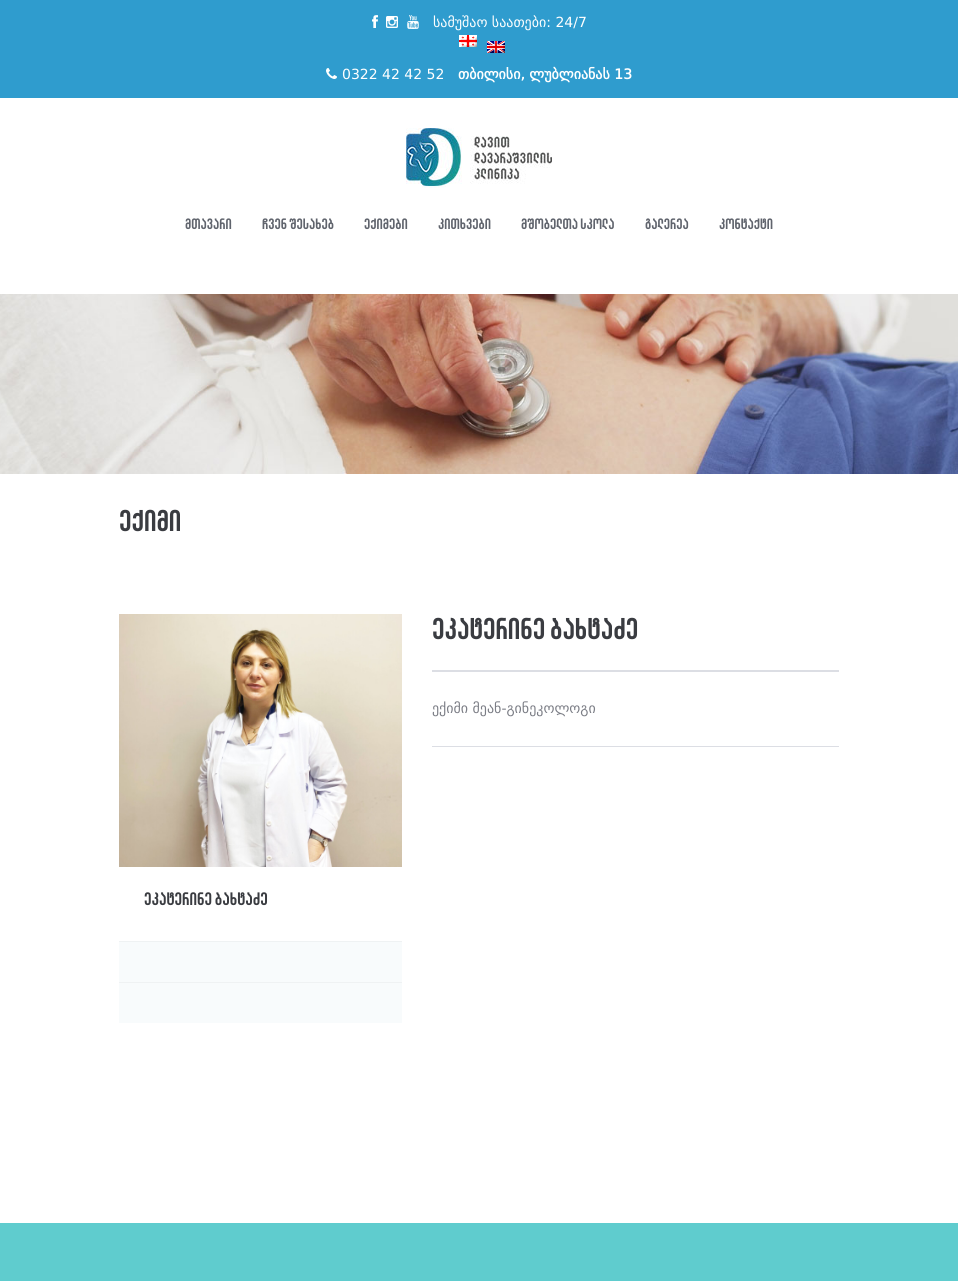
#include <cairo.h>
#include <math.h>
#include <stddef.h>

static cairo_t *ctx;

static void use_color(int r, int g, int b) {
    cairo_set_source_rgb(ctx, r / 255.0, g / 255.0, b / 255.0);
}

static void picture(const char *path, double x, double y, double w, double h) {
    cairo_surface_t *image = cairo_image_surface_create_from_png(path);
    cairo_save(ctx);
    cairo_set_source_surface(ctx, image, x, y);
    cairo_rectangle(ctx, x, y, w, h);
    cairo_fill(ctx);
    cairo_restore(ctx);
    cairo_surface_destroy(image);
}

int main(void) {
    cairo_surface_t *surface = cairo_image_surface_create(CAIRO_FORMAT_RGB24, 958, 1281);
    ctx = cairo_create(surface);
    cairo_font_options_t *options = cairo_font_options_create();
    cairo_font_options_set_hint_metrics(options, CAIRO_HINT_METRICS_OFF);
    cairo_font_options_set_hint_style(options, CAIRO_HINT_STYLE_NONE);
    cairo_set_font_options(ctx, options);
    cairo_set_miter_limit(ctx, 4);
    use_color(255, 255, 255);
    cairo_paint(ctx);
    use_color(47, 156, 206);
    cairo_rectangle(ctx, 0, 0, 958, 98);
    cairo_fill(ctx);
    picture("img1.png", 372, 15, 6, 13);
    picture("img2.png", 386, 16, 12, 12);
    picture("img3.png", 407, 15, 12, 14);
    cairo_select_font_face(ctx, "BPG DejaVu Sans", CAIRO_FONT_SLANT_NORMAL, CAIRO_FONT_WEIGHT_NORMAL);
    cairo_set_font_size(ctx, 14);
    use_color(255, 255, 255);
    cairo_move_to(ctx, 433, 27);
    cairo_show_text(ctx, "სამუშაო საათები: 24/7");
    picture("img4.png", 459, 35, 18, 12);
    picture("img5.png", 487, 41, 18, 12);
    picture("img6.png", 326, 68, 11, 11);
    cairo_move_to(ctx, 342, 79);
    cairo_show_text(ctx, "0322 42 42 52");
    cairo_select_font_face(ctx, "BPG DejaVu Sans", CAIRO_FONT_SLANT_NORMAL, CAIRO_FONT_WEIGHT_BOLD);
    cairo_move_to(ctx, 458, 79);
    cairo_show_text(ctx, "თბილისი, ლუბლიანას 13");
    picture("img7.png", 406, 128, 146, 60);
    cairo_select_font_face(ctx, "Bebas Neue", CAIRO_FONT_SLANT_NORMAL, CAIRO_FONT_WEIGHT_BOLD);
    cairo_set_font_size(ctx, 15);
    use_color(96, 100, 109);
    cairo_move_to(ctx, 185, 229);
    cairo_show_text(ctx, "მთავარი");
    cairo_move_to(ctx, 262, 229);
    cairo_show_text(ctx, "ჩვენ შესახებ");
    cairo_move_to(ctx, 364, 229);
    cairo_show_text(ctx, "ექიმები");
    cairo_move_to(ctx, 438, 229);
    cairo_show_text(ctx, "კითხვები");
    cairo_move_to(ctx, 521, 229);
    cairo_show_text(ctx, "მშობელთა სკოლა");
    cairo_move_to(ctx, 645, 229);
    cairo_show_text(ctx, "გალერეა");
    cairo_move_to(ctx, 719, 229);
    cairo_show_text(ctx, "კონტაქტი");
    picture("img8.png", 0, 294, 958, 180);
    cairo_set_font_size(ctx, 30);
    use_color(58, 60, 65);
    cairo_move_to(ctx, 119, 531);
    cairo_show_text(ctx, "ექიმი");
    use_color(220, 222, 228);
    cairo_rectangle(ctx, 432, 746, 407, 1);
    cairo_fill(ctx);
    cairo_rectangle(ctx, 432, 670, 407, 2);
    cairo_fill(ctx);
    use_color(58, 60, 65);
    cairo_move_to(ctx, 432, 639);
    cairo_show_text(ctx, "ეკატერინე ბახტაძე");
    cairo_select_font_face(ctx, "BPG DejaVu Sans", CAIRO_FONT_SLANT_NORMAL, CAIRO_FONT_WEIGHT_NORMAL);
    cairo_set_font_size(ctx, 14);
    use_color(123, 125, 133);
    cairo_move_to(ctx, 432, 713);
    cairo_show_text(ctx, "ექიმი მეან-გინეკოლოგი");
    picture("img9.png", 119, 614, 283, 253);
    cairo_select_font_face(ctx, "Bebas Neue", CAIRO_FONT_SLANT_NORMAL, CAIRO_FONT_WEIGHT_BOLD);
    cairo_set_font_size(ctx, 18);
    use_color(58, 60, 65);
    cairo_move_to(ctx, 144, 905);
    cairo_show_text(ctx, "ეკატერინე ბახტაძე");
    use_color(248, 251, 252);
    cairo_rectangle(ctx, 119, 942, 283, 40);
    cairo_fill(ctx);
    use_color(239, 242, 243);
    cairo_rectangle(ctx, 119, 941, 283, 1);
    cairo_fill(ctx);
    use_color(248, 251, 252);
    cairo_rectangle(ctx, 119, 983, 283, 40);
    cairo_fill(ctx);
    use_color(239, 242, 243);
    cairo_rectangle(ctx, 119, 982, 283, 1);
    cairo_fill(ctx);
    use_color(95, 204, 206);
    cairo_rectangle(ctx, 0, 1223, 958, 58);
    cairo_fill(ctx);
    cairo_surface_write_to_png(surface, "result.png");
    cairo_font_options_destroy(options);
    cairo_destroy(ctx);
    cairo_surface_destroy(surface);
    return 0;
}
